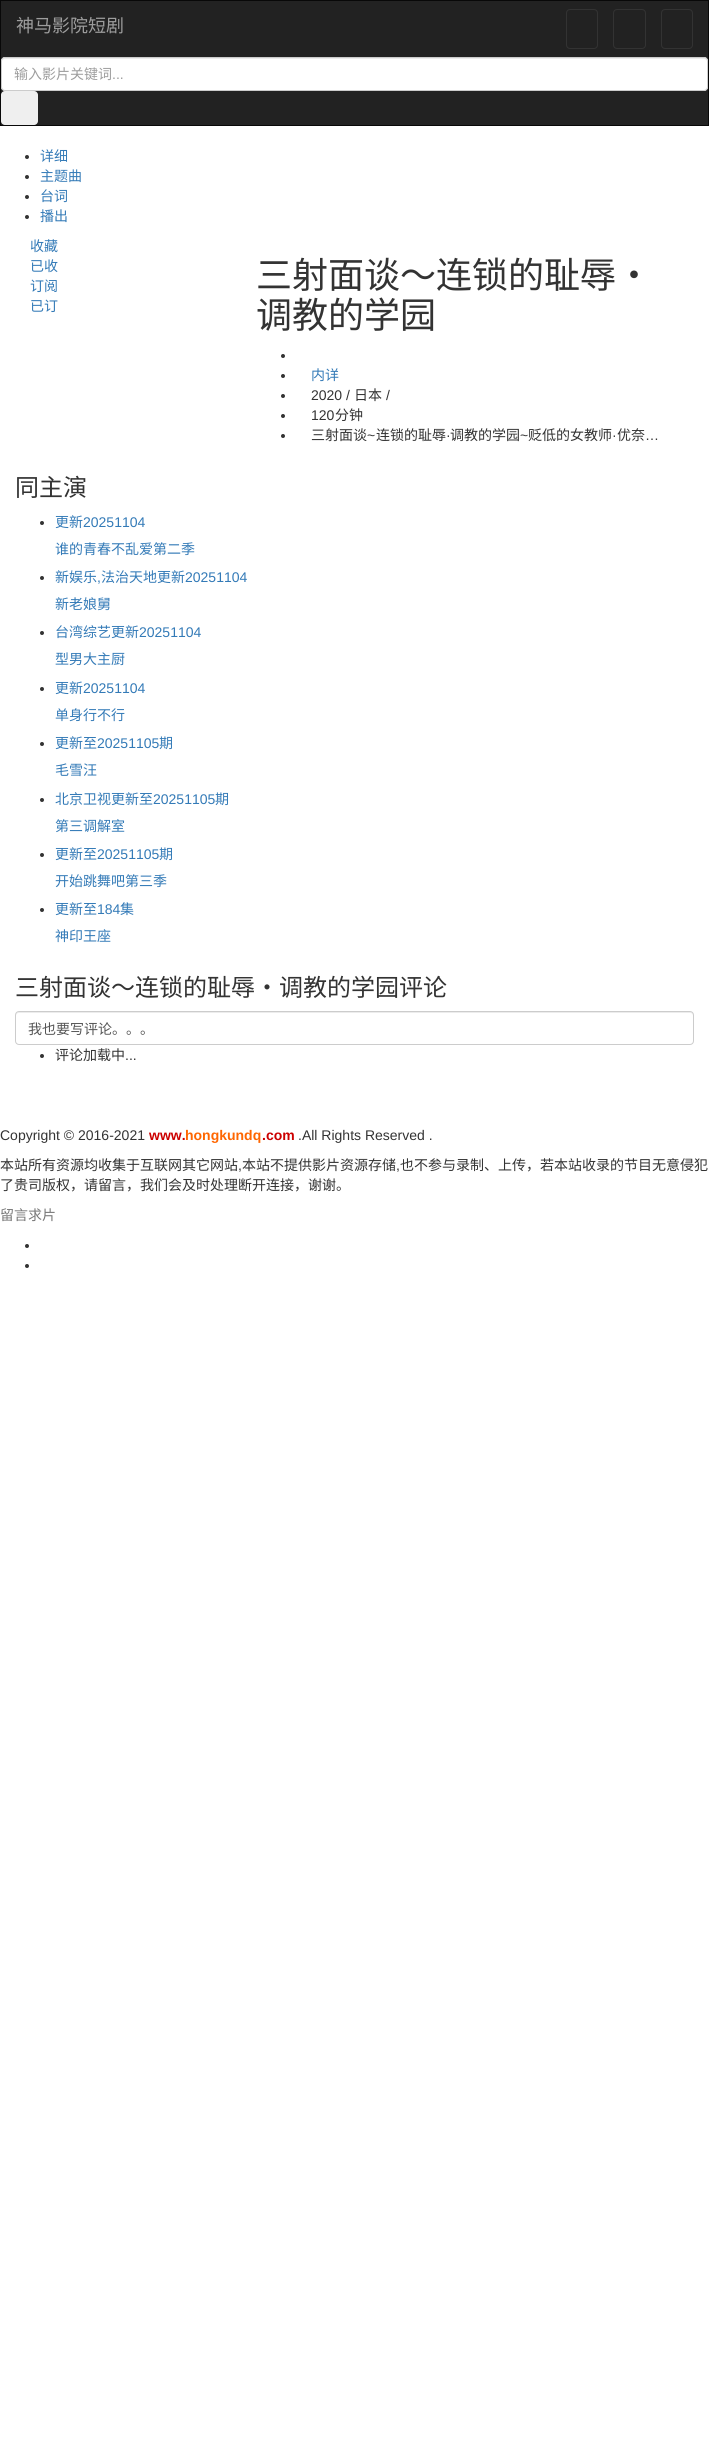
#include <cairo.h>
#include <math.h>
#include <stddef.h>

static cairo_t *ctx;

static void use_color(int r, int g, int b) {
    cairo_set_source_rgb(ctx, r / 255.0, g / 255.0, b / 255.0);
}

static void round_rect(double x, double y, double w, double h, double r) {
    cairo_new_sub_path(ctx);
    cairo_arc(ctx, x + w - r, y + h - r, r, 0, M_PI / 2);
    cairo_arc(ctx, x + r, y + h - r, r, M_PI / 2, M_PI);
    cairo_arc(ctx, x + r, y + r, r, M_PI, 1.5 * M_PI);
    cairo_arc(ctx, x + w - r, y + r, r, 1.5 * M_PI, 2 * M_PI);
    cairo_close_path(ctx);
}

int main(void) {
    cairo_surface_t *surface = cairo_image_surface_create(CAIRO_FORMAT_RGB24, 709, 2454);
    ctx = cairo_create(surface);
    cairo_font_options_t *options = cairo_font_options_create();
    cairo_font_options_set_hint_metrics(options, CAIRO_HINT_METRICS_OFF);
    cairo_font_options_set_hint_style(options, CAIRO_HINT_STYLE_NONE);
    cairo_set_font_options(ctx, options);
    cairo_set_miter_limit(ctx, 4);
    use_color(255, 255, 255);
    cairo_paint(ctx);
    use_color(34, 34, 34);
    cairo_rectangle(ctx, 0.5, 0.5, 708, 125);
    cairo_fill_preserve(ctx);
    use_color(8, 8, 8);
    cairo_set_line_width(ctx, 1);
    cairo_stroke(ctx);
    cairo_select_font_face(ctx, "Noto Sans CJK SC", CAIRO_FONT_SLANT_NORMAL, CAIRO_FONT_WEIGHT_NORMAL);
    cairo_set_font_size(ctx, 18);
    use_color(157, 157, 157);
    cairo_move_to(ctx, 16, 32);
    cairo_show_text(ctx, "神马影院短剧");
    round_rect(566.5, 9.5, 31, 39, 3.5);
    use_color(51, 51, 51);
    cairo_stroke(ctx);
    round_rect(613.5, 9.5, 32, 39, 3.5);
    cairo_stroke(ctx);
    round_rect(661.5, 9.5, 31, 39, 3.5);
    cairo_stroke(ctx);
    use_color(255, 255, 255);
    round_rect(1, 57, 707, 34, 4);
    cairo_fill(ctx);
    use_color(236, 236, 236);
    cairo_new_path(ctx);
    cairo_move_to(ctx, 5, 59);
    cairo_line_to(ctx, 704, 59);
    cairo_curve_to(ctx, 706, 59, 707, 60, 707, 62);
    cairo_curve_to(ctx, 707, 60, 706, 58, 704, 58);
    cairo_line_to(ctx, 5, 58);
    cairo_curve_to(ctx, 3, 58, 2, 60, 2, 62);
    cairo_curve_to(ctx, 2, 60, 3, 59, 5, 59);
    cairo_close_path(ctx);
    cairo_fill(ctx);
    round_rect(1.5, 57.5, 706, 33, 3.5);
    use_color(204, 204, 204);
    cairo_stroke(ctx);
    cairo_set_font_size(ctx, 14);
    use_color(157, 157, 157);
    cairo_move_to(ctx, 14, 79);
    cairo_show_text(ctx, "输入影片关键词");
    cairo_select_font_face(ctx, "Liberation Sans", CAIRO_FONT_SLANT_NORMAL, CAIRO_FONT_WEIGHT_NORMAL);
    cairo_move_to(ctx, 112, 79);
    cairo_show_text(ctx, "...");
    use_color(239, 239, 239);
    round_rect(1, 91, 37, 34, 4);
    cairo_fill(ctx);
    use_color(51, 51, 51);
    cairo_arc(ctx, 27, 157, 2, 0, 2 * M_PI);
    cairo_fill(ctx);
    cairo_select_font_face(ctx, "Noto Sans CJK SC", CAIRO_FONT_SLANT_NORMAL, CAIRO_FONT_WEIGHT_NORMAL);
    use_color(51, 122, 183);
    cairo_move_to(ctx, 40, 161);
    cairo_show_text(ctx, "详细");
    use_color(51, 51, 51);
    cairo_new_path(ctx);
    cairo_arc(ctx, 27, 177, 2, 0, 2 * M_PI);
    cairo_fill(ctx);
    use_color(51, 122, 183);
    cairo_move_to(ctx, 40, 181);
    cairo_show_text(ctx, "主题曲");
    use_color(51, 51, 51);
    cairo_new_path(ctx);
    cairo_arc(ctx, 27, 197, 2, 0, 2 * M_PI);
    cairo_fill(ctx);
    use_color(51, 122, 183);
    cairo_move_to(ctx, 40, 201);
    cairo_show_text(ctx, "台词");
    use_color(51, 51, 51);
    cairo_new_path(ctx);
    cairo_arc(ctx, 27, 217, 2, 0, 2 * M_PI);
    cairo_fill(ctx);
    use_color(51, 122, 183);
    cairo_move_to(ctx, 40, 221);
    cairo_show_text(ctx, "播出");
    cairo_move_to(ctx, 30, 251);
    cairo_show_text(ctx, "收藏");
    cairo_move_to(ctx, 30, 271);
    cairo_show_text(ctx, "已收");
    cairo_move_to(ctx, 30, 291);
    cairo_show_text(ctx, "订阅");
    cairo_move_to(ctx, 30, 311);
    cairo_show_text(ctx, "已订");
    cairo_set_font_size(ctx, 36);
    use_color(51, 51, 51);
    cairo_move_to(ctx, 256, 288);
    cairo_show_text(ctx, "三射面谈～连锁的耻辱・");
    cairo_move_to(ctx, 256, 328);
    cairo_show_text(ctx, "调教的学园");
    cairo_new_path(ctx);
    cairo_arc(ctx, 283, 356, 2, 0, 2 * M_PI);
    cairo_fill(ctx);
    cairo_arc(ctx, 283, 376, 2, 0, 2 * M_PI);
    cairo_fill(ctx);
    cairo_set_font_size(ctx, 14);
    use_color(51, 122, 183);
    cairo_move_to(ctx, 311, 380);
    cairo_show_text(ctx, "内详");
    use_color(51, 51, 51);
    cairo_new_path(ctx);
    cairo_arc(ctx, 283, 396, 2, 0, 2 * M_PI);
    cairo_fill(ctx);
    cairo_select_font_face(ctx, "Liberation Sans", CAIRO_FONT_SLANT_NORMAL, CAIRO_FONT_WEIGHT_NORMAL);
    cairo_move_to(ctx, 311, 400);
    cairo_show_text(ctx, "2020 /");
    cairo_select_font_face(ctx, "Noto Sans CJK SC", CAIRO_FONT_SLANT_NORMAL, CAIRO_FONT_WEIGHT_NORMAL);
    cairo_move_to(ctx, 354, 400);
    cairo_show_text(ctx, "日本");
    cairo_select_font_face(ctx, "Liberation Sans", CAIRO_FONT_SLANT_NORMAL, CAIRO_FONT_WEIGHT_NORMAL);
    cairo_move_to(ctx, 386, 400);
    cairo_show_text(ctx, "/");
    cairo_new_path(ctx);
    cairo_arc(ctx, 283, 416, 2, 0, 2 * M_PI);
    cairo_fill(ctx);
    cairo_move_to(ctx, 311, 420);
    cairo_show_text(ctx, "120");
    cairo_select_font_face(ctx, "Noto Sans CJK SC", CAIRO_FONT_SLANT_NORMAL, CAIRO_FONT_WEIGHT_NORMAL);
    cairo_move_to(ctx, 335, 420);
    cairo_show_text(ctx, "分钟");
    cairo_new_path(ctx);
    cairo_arc(ctx, 283, 436, 2, 0, 2 * M_PI);
    cairo_fill(ctx);
    cairo_move_to(ctx, 311, 440);
    cairo_show_text(ctx, "三射面谈");
    cairo_select_font_face(ctx, "Liberation Sans", CAIRO_FONT_SLANT_NORMAL, CAIRO_FONT_WEIGHT_NORMAL);
    cairo_move_to(ctx, 367, 440);
    cairo_show_text(ctx, "~");
    cairo_select_font_face(ctx, "Noto Sans CJK SC", CAIRO_FONT_SLANT_NORMAL, CAIRO_FONT_WEIGHT_NORMAL);
    cairo_move_to(ctx, 376, 440);
    cairo_show_text(ctx, "连锁的耻辱");
    cairo_select_font_face(ctx, "Liberation Sans", CAIRO_FONT_SLANT_NORMAL, CAIRO_FONT_WEIGHT_NORMAL);
    cairo_move_to(ctx, 446, 440);
    cairo_show_text(ctx, "·");
    cairo_select_font_face(ctx, "Noto Sans CJK SC", CAIRO_FONT_SLANT_NORMAL, CAIRO_FONT_WEIGHT_NORMAL);
    cairo_move_to(ctx, 450, 440);
    cairo_show_text(ctx, "调教的学园");
    cairo_select_font_face(ctx, "Liberation Sans", CAIRO_FONT_SLANT_NORMAL, CAIRO_FONT_WEIGHT_NORMAL);
    cairo_move_to(ctx, 520, 440);
    cairo_show_text(ctx, "~");
    cairo_select_font_face(ctx, "Noto Sans CJK SC", CAIRO_FONT_SLANT_NORMAL, CAIRO_FONT_WEIGHT_NORMAL);
    cairo_move_to(ctx, 528, 440);
    cairo_show_text(ctx, "贬低的女教师");
    cairo_select_font_face(ctx, "Liberation Sans", CAIRO_FONT_SLANT_NORMAL, CAIRO_FONT_WEIGHT_NORMAL);
    cairo_move_to(ctx, 612, 440);
    cairo_show_text(ctx, "·");
    cairo_select_font_face(ctx, "Noto Sans CJK SC", CAIRO_FONT_SLANT_NORMAL, CAIRO_FONT_WEIGHT_NORMAL);
    cairo_move_to(ctx, 617, 440);
    cairo_show_text(ctx, "优奈");
    cairo_select_font_face(ctx, "Liberation Sans", CAIRO_FONT_SLANT_NORMAL, CAIRO_FONT_WEIGHT_NORMAL);
    cairo_move_to(ctx, 645, 440);
    cairo_show_text(ctx, "…");
    cairo_select_font_face(ctx, "Noto Sans CJK SC", CAIRO_FONT_SLANT_NORMAL, CAIRO_FONT_WEIGHT_NORMAL);
    cairo_set_font_size(ctx, 24);
    cairo_move_to(ctx, 15, 496);
    cairo_show_text(ctx, "同主演");
    cairo_new_path(ctx);
    cairo_arc(ctx, 42, 523, 2, 0, 2 * M_PI);
    cairo_fill(ctx);
    cairo_set_font_size(ctx, 14);
    use_color(51, 122, 183);
    cairo_move_to(ctx, 55, 527);
    cairo_show_text(ctx, "更新");
    cairo_select_font_face(ctx, "Liberation Sans", CAIRO_FONT_SLANT_NORMAL, CAIRO_FONT_WEIGHT_NORMAL);
    cairo_move_to(ctx, 83, 527);
    cairo_show_text(ctx, "20251104");
    cairo_select_font_face(ctx, "Noto Sans CJK SC", CAIRO_FONT_SLANT_NORMAL, CAIRO_FONT_WEIGHT_NORMAL);
    cairo_move_to(ctx, 55, 554);
    cairo_show_text(ctx, "谁的青春不乱爱第二季");
    use_color(51, 51, 51);
    cairo_new_path(ctx);
    cairo_arc(ctx, 42, 578, 2, 0, 2 * M_PI);
    cairo_fill(ctx);
    use_color(51, 122, 183);
    cairo_move_to(ctx, 55, 582);
    cairo_show_text(ctx, "新娱乐");
    cairo_move_to(ctx, 101, 582);
    cairo_show_text(ctx, "法治天地更新");
    cairo_select_font_face(ctx, "Liberation Sans", CAIRO_FONT_SLANT_NORMAL, CAIRO_FONT_WEIGHT_NORMAL);
    cairo_move_to(ctx, 185, 582);
    cairo_show_text(ctx, "20251104");
    cairo_move_to(ctx, 97, 582);
    cairo_show_text(ctx, ",");
    cairo_select_font_face(ctx, "Noto Sans CJK SC", CAIRO_FONT_SLANT_NORMAL, CAIRO_FONT_WEIGHT_NORMAL);
    cairo_move_to(ctx, 55, 609);
    cairo_show_text(ctx, "新老娘舅");
    use_color(51, 51, 51);
    cairo_new_path(ctx);
    cairo_arc(ctx, 42, 633, 2, 0, 2 * M_PI);
    cairo_fill(ctx);
    use_color(51, 122, 183);
    cairo_move_to(ctx, 55, 637);
    cairo_show_text(ctx, "台湾综艺更新");
    cairo_select_font_face(ctx, "Liberation Sans", CAIRO_FONT_SLANT_NORMAL, CAIRO_FONT_WEIGHT_NORMAL);
    cairo_move_to(ctx, 139, 637);
    cairo_show_text(ctx, "20251104");
    cairo_select_font_face(ctx, "Noto Sans CJK SC", CAIRO_FONT_SLANT_NORMAL, CAIRO_FONT_WEIGHT_NORMAL);
    cairo_move_to(ctx, 55, 664);
    cairo_show_text(ctx, "型男大主厨");
    use_color(51, 51, 51);
    cairo_new_path(ctx);
    cairo_arc(ctx, 42, 689, 2, 0, 2 * M_PI);
    cairo_fill(ctx);
    use_color(51, 122, 183);
    cairo_move_to(ctx, 55, 693);
    cairo_show_text(ctx, "更新");
    cairo_select_font_face(ctx, "Liberation Sans", CAIRO_FONT_SLANT_NORMAL, CAIRO_FONT_WEIGHT_NORMAL);
    cairo_move_to(ctx, 83, 693);
    cairo_show_text(ctx, "20251104");
    cairo_select_font_face(ctx, "Noto Sans CJK SC", CAIRO_FONT_SLANT_NORMAL, CAIRO_FONT_WEIGHT_NORMAL);
    cairo_move_to(ctx, 55, 720);
    cairo_show_text(ctx, "单身行不行");
    use_color(51, 51, 51);
    cairo_new_path(ctx);
    cairo_arc(ctx, 42, 744, 2, 0, 2 * M_PI);
    cairo_fill(ctx);
    use_color(51, 122, 183);
    cairo_move_to(ctx, 55, 748);
    cairo_show_text(ctx, "更新至");
    cairo_select_font_face(ctx, "Liberation Sans", CAIRO_FONT_SLANT_NORMAL, CAIRO_FONT_WEIGHT_NORMAL);
    cairo_move_to(ctx, 97, 748);
    cairo_show_text(ctx, "20251105");
    cairo_select_font_face(ctx, "Noto Sans CJK SC", CAIRO_FONT_SLANT_NORMAL, CAIRO_FONT_WEIGHT_NORMAL);
    cairo_move_to(ctx, 159, 748);
    cairo_show_text(ctx, "期");
    cairo_move_to(ctx, 55, 775);
    cairo_show_text(ctx, "毛雪汪");
    use_color(51, 51, 51);
    cairo_new_path(ctx);
    cairo_arc(ctx, 42, 800, 2, 0, 2 * M_PI);
    cairo_fill(ctx);
    use_color(51, 122, 183);
    cairo_move_to(ctx, 55, 804);
    cairo_show_text(ctx, "北京卫视更新至");
    cairo_select_font_face(ctx, "Liberation Sans", CAIRO_FONT_SLANT_NORMAL, CAIRO_FONT_WEIGHT_NORMAL);
    cairo_move_to(ctx, 153, 804);
    cairo_show_text(ctx, "20251105");
    cairo_select_font_face(ctx, "Noto Sans CJK SC", CAIRO_FONT_SLANT_NORMAL, CAIRO_FONT_WEIGHT_NORMAL);
    cairo_move_to(ctx, 215, 804);
    cairo_show_text(ctx, "期");
    cairo_move_to(ctx, 55, 831);
    cairo_show_text(ctx, "第三调解室");
    use_color(51, 51, 51);
    cairo_new_path(ctx);
    cairo_arc(ctx, 42, 855, 2, 0, 2 * M_PI);
    cairo_fill(ctx);
    use_color(51, 122, 183);
    cairo_move_to(ctx, 55, 859);
    cairo_show_text(ctx, "更新至");
    cairo_select_font_face(ctx, "Liberation Sans", CAIRO_FONT_SLANT_NORMAL, CAIRO_FONT_WEIGHT_NORMAL);
    cairo_move_to(ctx, 97, 859);
    cairo_show_text(ctx, "20251105");
    cairo_select_font_face(ctx, "Noto Sans CJK SC", CAIRO_FONT_SLANT_NORMAL, CAIRO_FONT_WEIGHT_NORMAL);
    cairo_move_to(ctx, 159, 859);
    cairo_show_text(ctx, "期");
    cairo_move_to(ctx, 55, 886);
    cairo_show_text(ctx, "开始跳舞吧第三季");
    use_color(51, 51, 51);
    cairo_new_path(ctx);
    cairo_arc(ctx, 42, 910, 2, 0, 2 * M_PI);
    cairo_fill(ctx);
    use_color(51, 122, 183);
    cairo_move_to(ctx, 55, 914);
    cairo_show_text(ctx, "更新至");
    cairo_select_font_face(ctx, "Liberation Sans", CAIRO_FONT_SLANT_NORMAL, CAIRO_FONT_WEIGHT_NORMAL);
    cairo_move_to(ctx, 97, 914);
    cairo_show_text(ctx, "184");
    cairo_select_font_face(ctx, "Noto Sans CJK SC", CAIRO_FONT_SLANT_NORMAL, CAIRO_FONT_WEIGHT_NORMAL);
    cairo_move_to(ctx, 120, 914);
    cairo_show_text(ctx, "集");
    cairo_move_to(ctx, 55, 941);
    cairo_show_text(ctx, "神印王座");
    cairo_set_font_size(ctx, 24);
    use_color(51, 51, 51);
    cairo_move_to(ctx, 15, 996);
    cairo_show_text(ctx, "三射面谈～连锁的耻辱・调教的学园评论");
    use_color(236, 236, 236);
    cairo_new_path(ctx);
    cairo_move_to(ctx, 19, 1013);
    cairo_line_to(ctx, 690, 1013);
    cairo_curve_to(ctx, 692, 1013, 693, 1014, 693, 1016);
    cairo_line_to(ctx, 693, 1015);
    cairo_curve_to(ctx, 693, 1013, 692, 1012, 690, 1012);
    cairo_line_to(ctx, 19, 1012);
    cairo_curve_to(ctx, 17, 1012, 16, 1013, 16, 1015);
    cairo_line_to(ctx, 16, 1016);
    cairo_curve_to(ctx, 16, 1014, 17, 1013, 19, 1013);
    cairo_close_path(ctx);
    cairo_fill(ctx);
    round_rect(15.5, 1011.5, 678, 33, 3.5);
    use_color(204, 204, 204);
    cairo_stroke(ctx);
    cairo_set_font_size(ctx, 14);
    use_color(85, 85, 85);
    cairo_move_to(ctx, 28, 1034);
    cairo_show_text(ctx, "我也要写评论。。。");
    use_color(51, 51, 51);
    cairo_new_path(ctx);
    cairo_arc(ctx, 42, 1056, 2, 0, 2 * M_PI);
    cairo_fill(ctx);
    cairo_move_to(ctx, 55, 1060);
    cairo_show_text(ctx, "评论加载中");
    cairo_select_font_face(ctx, "Liberation Sans", CAIRO_FONT_SLANT_NORMAL, CAIRO_FONT_WEIGHT_NORMAL);
    cairo_move_to(ctx, 125, 1060);
    cairo_show_text(ctx, "...");
    cairo_move_to(ctx, 0, 1140);
    cairo_show_text(ctx, "Copyright © 2016-2021");
    cairo_select_font_face(ctx, "Liberation Sans", CAIRO_FONT_SLANT_NORMAL, CAIRO_FONT_WEIGHT_BOLD);
    use_color(204, 0, 0);
    cairo_move_to(ctx, 149, 1140);
    cairo_show_text(ctx, "www.");
    use_color(255, 102, 0);
    cairo_move_to(ctx, 185, 1140);
    cairo_show_text(ctx, "hongkundq");
    use_color(204, 0, 0);
    cairo_move_to(ctx, 262, 1140);
    cairo_show_text(ctx, ".com");
    cairo_select_font_face(ctx, "Liberation Sans", CAIRO_FONT_SLANT_NORMAL, CAIRO_FONT_WEIGHT_NORMAL);
    use_color(51, 51, 51);
    cairo_move_to(ctx, 298, 1140);
    cairo_show_text(ctx, ".All Rights Reserved .");
    cairo_select_font_face(ctx, "Noto Sans CJK SC", CAIRO_FONT_SLANT_NORMAL, CAIRO_FONT_WEIGHT_NORMAL);
    cairo_move_to(ctx, 0, 1170);
    cairo_show_text(ctx, "本站所有资源均收集于互联网其它网站");
    cairo_select_font_face(ctx, "Liberation Sans", CAIRO_FONT_SLANT_NORMAL, CAIRO_FONT_WEIGHT_NORMAL);
    cairo_move_to(ctx, 238, 1170);
    cairo_show_text(ctx, ",");
    cairo_select_font_face(ctx, "Noto Sans CJK SC", CAIRO_FONT_SLANT_NORMAL, CAIRO_FONT_WEIGHT_NORMAL);
    cairo_move_to(ctx, 242, 1170);
    cairo_show_text(ctx, "本站不提供影片资源存储");
    cairo_select_font_face(ctx, "Liberation Sans", CAIRO_FONT_SLANT_NORMAL, CAIRO_FONT_WEIGHT_NORMAL);
    cairo_move_to(ctx, 396, 1170);
    cairo_show_text(ctx, ",");
    cairo_select_font_face(ctx, "Noto Sans CJK SC", CAIRO_FONT_SLANT_NORMAL, CAIRO_FONT_WEIGHT_NORMAL);
    cairo_move_to(ctx, 400, 1170);
    cairo_show_text(ctx, "也不参与录制、上传，若本站收录的节目无意侵犯");
    cairo_move_to(ctx, 0, 1190);
    cairo_show_text(ctx, "了贵司版权，请留言，我们会及时处理断开连接，谢谢。");
    use_color(119, 119, 119);
    cairo_move_to(ctx, 0, 1220);
    cairo_show_text(ctx, "留言求片");
    use_color(51, 51, 51);
    cairo_new_path(ctx);
    cairo_arc(ctx, 27, 1246, 2, 0, 2 * M_PI);
    cairo_fill(ctx);
    cairo_arc(ctx, 27, 1266, 2, 0, 2 * M_PI);
    cairo_fill(ctx);
    cairo_surface_write_to_png(surface, "result.png");
    cairo_font_options_destroy(options);
    cairo_destroy(ctx);
    cairo_surface_destroy(surface);
    return 0;
}
